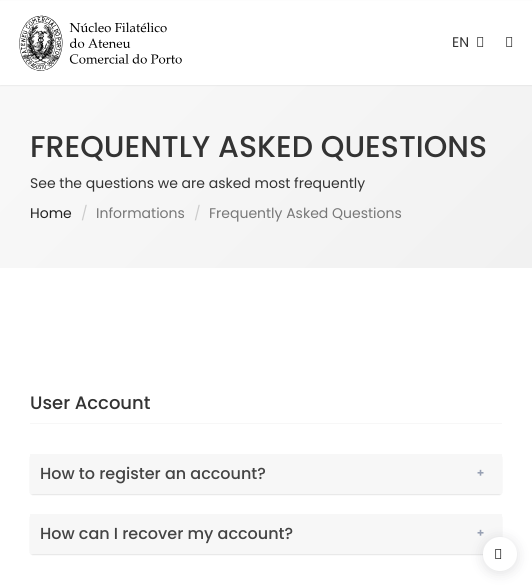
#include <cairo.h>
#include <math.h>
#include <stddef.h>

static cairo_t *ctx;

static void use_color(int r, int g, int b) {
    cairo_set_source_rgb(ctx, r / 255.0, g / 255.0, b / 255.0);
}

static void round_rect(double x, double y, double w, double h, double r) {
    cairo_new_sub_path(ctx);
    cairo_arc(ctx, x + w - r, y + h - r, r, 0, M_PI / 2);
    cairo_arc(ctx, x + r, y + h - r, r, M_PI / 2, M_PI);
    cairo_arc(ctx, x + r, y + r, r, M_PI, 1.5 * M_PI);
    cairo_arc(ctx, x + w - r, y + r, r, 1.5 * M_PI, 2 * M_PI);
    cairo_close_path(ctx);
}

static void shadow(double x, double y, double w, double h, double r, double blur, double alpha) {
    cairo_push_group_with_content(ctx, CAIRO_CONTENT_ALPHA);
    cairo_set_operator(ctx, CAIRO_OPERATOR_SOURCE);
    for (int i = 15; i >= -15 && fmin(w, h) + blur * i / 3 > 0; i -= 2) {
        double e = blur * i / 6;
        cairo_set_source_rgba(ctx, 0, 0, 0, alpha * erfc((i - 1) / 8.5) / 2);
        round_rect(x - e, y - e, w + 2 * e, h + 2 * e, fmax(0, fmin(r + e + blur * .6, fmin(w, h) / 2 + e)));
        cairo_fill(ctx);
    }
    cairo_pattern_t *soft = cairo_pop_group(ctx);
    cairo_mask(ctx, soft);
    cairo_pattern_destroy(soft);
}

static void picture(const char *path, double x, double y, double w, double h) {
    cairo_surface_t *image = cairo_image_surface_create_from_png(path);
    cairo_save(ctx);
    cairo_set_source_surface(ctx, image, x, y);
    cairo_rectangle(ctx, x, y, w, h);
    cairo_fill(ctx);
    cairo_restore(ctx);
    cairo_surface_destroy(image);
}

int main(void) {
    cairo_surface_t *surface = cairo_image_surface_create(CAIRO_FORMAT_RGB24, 532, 586);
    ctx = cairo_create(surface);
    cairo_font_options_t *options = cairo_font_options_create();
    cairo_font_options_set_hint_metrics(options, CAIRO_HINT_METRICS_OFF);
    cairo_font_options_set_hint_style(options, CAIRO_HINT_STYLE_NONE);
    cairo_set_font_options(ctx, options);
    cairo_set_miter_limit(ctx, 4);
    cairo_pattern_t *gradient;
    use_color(255, 255, 255);
    cairo_paint(ctx);
    gradient = cairo_pattern_create_linear(87, -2.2, 445, 355);
    cairo_pattern_add_color_stop_rgba(gradient, 0.1, 0.973, 0.973, 0.973, 1);
    cairo_pattern_add_color_stop_rgba(gradient, 1, 0.945, 0.945, 0.945, 1);
    cairo_set_source(ctx, gradient);
    cairo_pattern_destroy(gradient);
    cairo_rectangle(ctx, 0, 85, 532, 183);
    cairo_fill(ctx);
    use_color(0, 0, 0);
    shadow(0, 1, 532, 85, 0, 0.5, 0.05);
    use_color(255, 255, 255);
    cairo_rectangle(ctx, 0, 1, 532, 84);
    cairo_fill(ctx);
    picture("img1.png", 19, 15, 163, 56);
    picture("img2.png", 506, 37, 7, 10);
    cairo_select_font_face(ctx, "Poppins", CAIRO_FONT_SLANT_NORMAL, CAIRO_FONT_WEIGHT_NORMAL);
    cairo_set_font_size(ctx, 14);
    use_color(51, 51, 51);
    cairo_move_to(ctx, 452, 47);
    cairo_show_text(ctx, "EN");
    picture("img2.png", 477, 37, 7, 10);
    cairo_select_font_face(ctx, "Poppins Medium", CAIRO_FONT_SLANT_NORMAL, CAIRO_FONT_WEIGHT_NORMAL);
    cairo_set_font_size(ctx, 30);
    cairo_move_to(ctx, 30, 157);
    cairo_show_text(ctx, "FREQUENTLY ASKED QUESTIONS");
    cairo_select_font_face(ctx, "Poppins", CAIRO_FONT_SLANT_NORMAL, CAIRO_FONT_WEIGHT_NORMAL);
    cairo_set_font_size(ctx, 14);
    cairo_move_to(ctx, 30, 188);
    cairo_show_text(ctx, "See the questions we are asked most frequently");
    use_color(34, 34, 34);
    cairo_move_to(ctx, 30, 218);
    cairo_show_text(ctx, "Home");
    use_color(204, 204, 204);
    cairo_move_to(ctx, 81, 218);
    cairo_show_text(ctx, "/");
    use_color(119, 119, 119);
    cairo_move_to(ctx, 96, 218);
    cairo_show_text(ctx, "Informations");
    use_color(204, 204, 204);
    cairo_move_to(ctx, 194, 218);
    cairo_show_text(ctx, "/");
    use_color(119, 119, 119);
    cairo_move_to(ctx, 209, 218);
    cairo_show_text(ctx, "Frequently Asked Questions");
    cairo_select_font_face(ctx, "Poppins Medium", CAIRO_FONT_SLANT_NORMAL, CAIRO_FONT_WEIGHT_NORMAL);
    cairo_set_font_size(ctx, 18);
    use_color(51, 51, 51);
    cairo_move_to(ctx, 30, 409);
    cairo_show_text(ctx, "User Account");
    use_color(247, 247, 247);
    cairo_rectangle(ctx, 30, 423, 472, 1);
    cairo_fill(ctx);
    use_color(0, 0, 0);
    shadow(30, 455, 472, 40, 3, 0.5, 0.1);
    use_color(247, 247, 247);
    cairo_rectangle(ctx, 30, 454, 472, 40);
    cairo_fill(ctx);
    cairo_set_font_size(ctx, 16);
    use_color(68, 68, 68);
    cairo_move_to(ctx, 40, 479);
    cairo_show_text(ctx, "How to register an account?");
    cairo_select_font_face(ctx, "Noto Sans Black", CAIRO_FONT_SLANT_NORMAL, CAIRO_FONT_WEIGHT_NORMAL);
    cairo_set_font_size(ctx, 12);
    use_color(151, 160, 179);
    cairo_move_to(ctx, 477, 477);
    cairo_show_text(ctx, "+");
    use_color(0, 0, 0);
    shadow(30, 515, 472, 40, 3, 0.5, 0.1);
    use_color(247, 247, 247);
    cairo_rectangle(ctx, 30, 514, 472, 40);
    cairo_fill(ctx);
    cairo_select_font_face(ctx, "Poppins Medium", CAIRO_FONT_SLANT_NORMAL, CAIRO_FONT_WEIGHT_NORMAL);
    cairo_set_font_size(ctx, 16);
    use_color(68, 68, 68);
    cairo_move_to(ctx, 40, 539);
    cairo_show_text(ctx, "How can I recover my account?");
    cairo_select_font_face(ctx, "Noto Sans Black", CAIRO_FONT_SLANT_NORMAL, CAIRO_FONT_WEIGHT_NORMAL);
    cairo_set_font_size(ctx, 12);
    use_color(151, 160, 179);
    cairo_move_to(ctx, 477, 537);
    cairo_show_text(ctx, "+");
    use_color(58, 59, 69);
    shadow(483, 539, 34, 34, 17, 6.5, 0.15);
    use_color(255, 255, 255);
    cairo_arc(ctx, 500, 554, 17, 0, 2 * M_PI);
    cairo_fill(ctx);
    picture("img3.png", 495, 549, 7, 10);
    cairo_surface_write_to_png(surface, "result.png");
    cairo_font_options_destroy(options);
    cairo_destroy(ctx);
    cairo_surface_destroy(surface);
    return 0;
}
